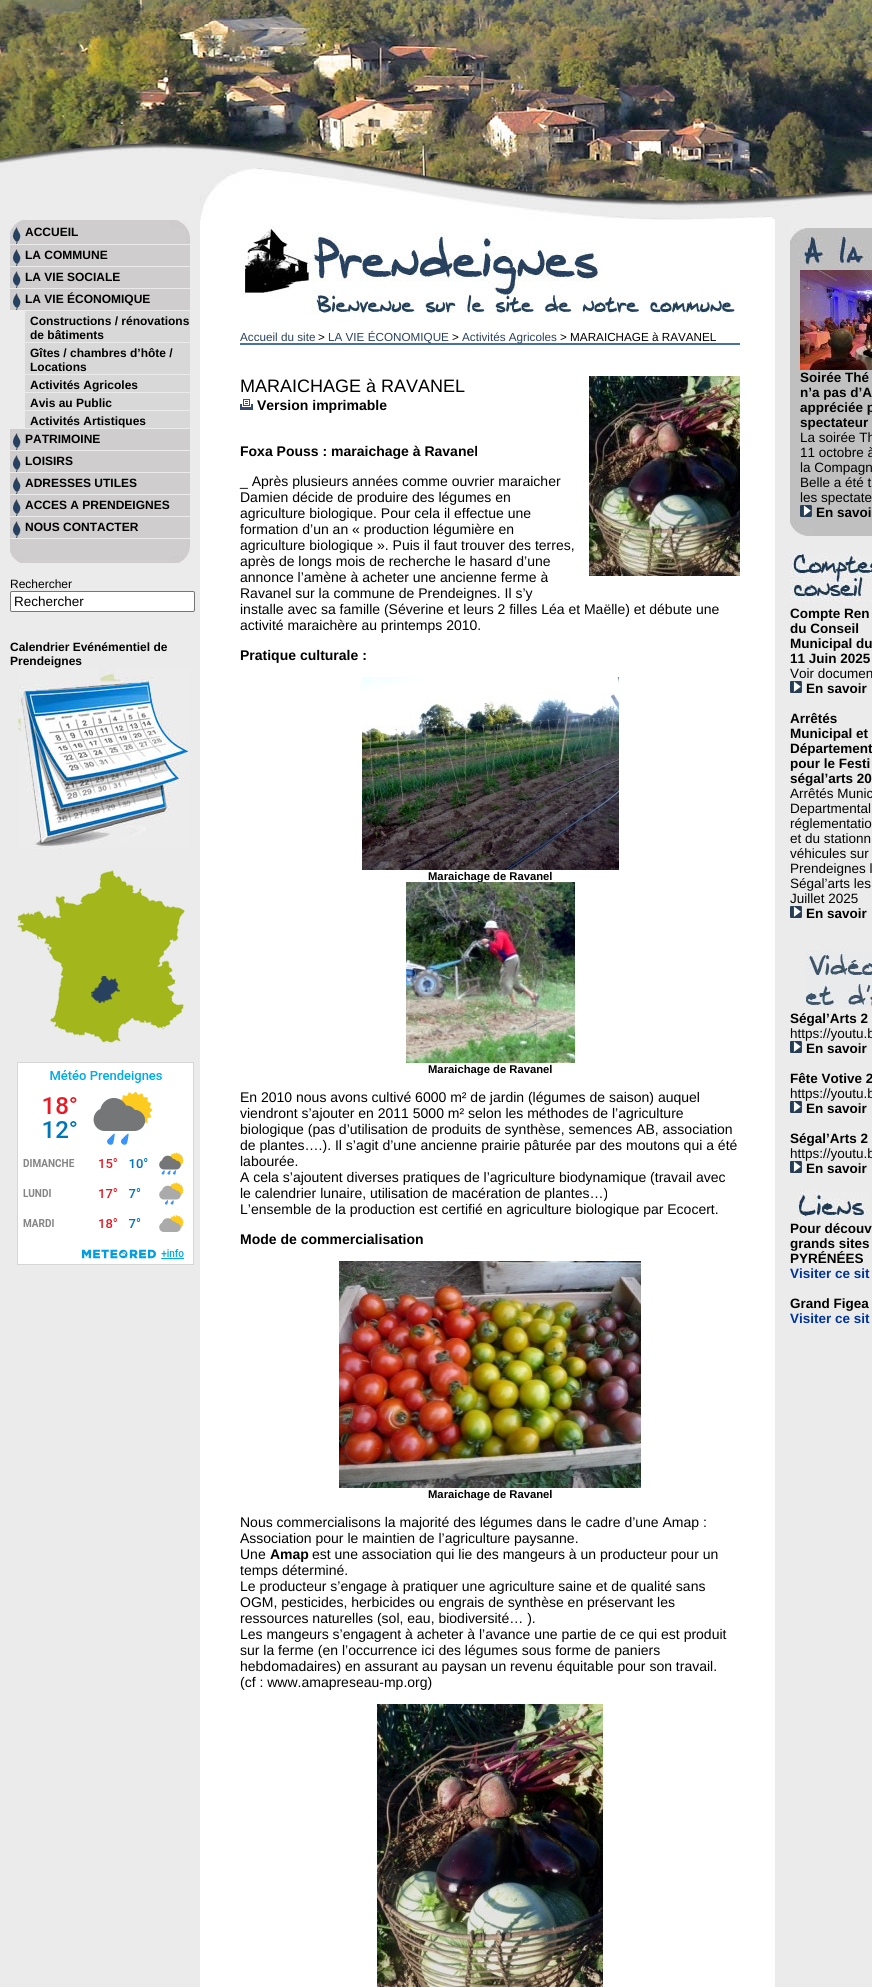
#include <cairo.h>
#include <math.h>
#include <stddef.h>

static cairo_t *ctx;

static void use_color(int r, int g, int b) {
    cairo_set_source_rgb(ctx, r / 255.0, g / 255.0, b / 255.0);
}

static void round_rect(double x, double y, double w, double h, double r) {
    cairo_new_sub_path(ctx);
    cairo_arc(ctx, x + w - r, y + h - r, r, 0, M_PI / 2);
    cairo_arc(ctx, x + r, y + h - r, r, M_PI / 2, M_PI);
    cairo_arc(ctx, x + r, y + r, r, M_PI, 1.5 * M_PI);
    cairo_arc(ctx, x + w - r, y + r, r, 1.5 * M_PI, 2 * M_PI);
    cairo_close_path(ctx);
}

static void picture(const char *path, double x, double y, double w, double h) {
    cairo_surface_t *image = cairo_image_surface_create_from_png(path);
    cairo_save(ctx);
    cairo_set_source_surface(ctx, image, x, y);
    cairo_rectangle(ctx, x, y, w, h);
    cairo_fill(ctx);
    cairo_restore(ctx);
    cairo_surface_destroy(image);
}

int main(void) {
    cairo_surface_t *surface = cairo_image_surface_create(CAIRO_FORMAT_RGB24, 872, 1987);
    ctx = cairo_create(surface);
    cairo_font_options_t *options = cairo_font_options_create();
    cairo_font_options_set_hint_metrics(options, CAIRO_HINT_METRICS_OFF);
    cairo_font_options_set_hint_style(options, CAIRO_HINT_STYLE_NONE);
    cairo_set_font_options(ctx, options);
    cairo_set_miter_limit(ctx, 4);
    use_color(255, 255, 255);
    cairo_paint(ctx);
    picture("img1.png", 0, 220, 872, 1767);
    picture("img2.png", 0, 208, 872, 12);
    picture("img3.png", 0, 0, 872, 208);
    picture("img4.png", 10, 220, 180, 24);
    cairo_select_font_face(ctx, "Liberation Sans", CAIRO_FONT_SLANT_NORMAL, CAIRO_FONT_WEIGHT_BOLD);
    cairo_set_font_size(ctx, 12);
    use_color(0, 0, 0);
    cairo_move_to(ctx, 25, 236);
    cairo_show_text(ctx, "ACCUEIL");
    picture("img5.png", 10, 245, 180, 21);
    cairo_move_to(ctx, 25, 259);
    cairo_show_text(ctx, "LA COMMUNE");
    picture("img5.png", 10, 267, 180, 21);
    cairo_move_to(ctx, 25, 281);
    cairo_show_text(ctx, "LA VIE SOCIALE");
    picture("img5.png", 10, 289, 180, 21);
    cairo_move_to(ctx, 25, 303);
    cairo_show_text(ctx, "LA VIE ÉCONOMIQUE");
    use_color(216, 216, 216);
    cairo_rectangle(ctx, 25, 311, 165, 31);
    cairo_fill(ctx);
    use_color(0, 0, 0);
    cairo_move_to(ctx, 30, 325);
    cairo_show_text(ctx, "Constructions / rénovations");
    cairo_move_to(ctx, 30, 339);
    cairo_show_text(ctx, "de bâtiments");
    use_color(216, 216, 216);
    cairo_rectangle(ctx, 25, 343, 165, 31);
    cairo_fill(ctx);
    use_color(0, 0, 0);
    cairo_move_to(ctx, 30, 357);
    cairo_show_text(ctx, "Gîtes / chambres d’hôte /");
    cairo_move_to(ctx, 30, 371);
    cairo_show_text(ctx, "Locations");
    use_color(216, 216, 216);
    cairo_rectangle(ctx, 25, 375, 165, 17);
    cairo_fill(ctx);
    use_color(0, 0, 0);
    cairo_move_to(ctx, 30, 389);
    cairo_show_text(ctx, "Activités Agricoles");
    use_color(216, 216, 216);
    cairo_rectangle(ctx, 25, 393, 165, 17);
    cairo_fill(ctx);
    use_color(0, 0, 0);
    cairo_move_to(ctx, 30, 407);
    cairo_show_text(ctx, "Avis au Public");
    use_color(216, 216, 216);
    cairo_rectangle(ctx, 25, 411, 165, 17);
    cairo_fill(ctx);
    use_color(0, 0, 0);
    cairo_move_to(ctx, 30, 425);
    cairo_show_text(ctx, "Activités Artistiques");
    picture("img5.png", 10, 429, 180, 21);
    cairo_move_to(ctx, 25, 443);
    cairo_show_text(ctx, "PATRIMOINE");
    picture("img5.png", 10, 451, 180, 21);
    cairo_move_to(ctx, 25, 465);
    cairo_show_text(ctx, "LOISIRS");
    picture("img5.png", 10, 473, 180, 21);
    cairo_move_to(ctx, 25, 487);
    cairo_show_text(ctx, "ADRESSES UTILES");
    picture("img5.png", 10, 495, 180, 21);
    cairo_move_to(ctx, 25, 509);
    cairo_show_text(ctx, "ACCES A PRENDEIGNES");
    picture("img5.png", 10, 517, 180, 21);
    cairo_move_to(ctx, 25, 531);
    cairo_show_text(ctx, "NOUS CONTACTER");
    picture("img6.png", 10, 539, 180, 24);
    cairo_select_font_face(ctx, "Liberation Sans", CAIRO_FONT_SLANT_NORMAL, CAIRO_FONT_WEIGHT_NORMAL);
    cairo_move_to(ctx, 10, 588);
    cairo_show_text(ctx, "Rechercher");
    use_color(255, 255, 255);
    round_rect(10.5, 591.5, 184, 20, 1.5);
    cairo_fill_preserve(ctx);
    use_color(118, 118, 118);
    cairo_set_line_width(ctx, 1);
    cairo_stroke(ctx);
    cairo_set_font_size(ctx, 13.5);
    use_color(0, 0, 0);
    cairo_move_to(ctx, 14, 606);
    cairo_show_text(ctx, "Rechercher");
    cairo_select_font_face(ctx, "Liberation Sans", CAIRO_FONT_SLANT_NORMAL, CAIRO_FONT_WEIGHT_BOLD);
    cairo_set_font_size(ctx, 12);
    cairo_move_to(ctx, 10, 651);
    cairo_show_text(ctx, "Calendrier Evénémentiel de");
    cairo_move_to(ctx, 10, 665);
    cairo_show_text(ctx, "Prendeignes");
    picture("img7.png", 18, 669, 172, 180);
    picture("img8.png", 17, 865, 168, 178);
    use_color(255, 255, 255);
    cairo_rectangle(ctx, 17.5, 1062.5, 176, 202);
    cairo_fill_preserve(ctx);
    use_color(214, 214, 214);
    cairo_stroke(ctx);
    picture("img9.png", 23, 1070, 161, 189);
    picture("img10.png", 240, 225, 496, 88);
    use_color(70, 114, 166);
    cairo_rectangle(ctx, 240, 343, 500, 2);
    cairo_fill(ctx);
    cairo_select_font_face(ctx, "Liberation Sans", CAIRO_FONT_SLANT_NORMAL, CAIRO_FONT_WEIGHT_NORMAL);
    cairo_set_font_size(ctx, 11.7);
    use_color(40, 65, 95);
    cairo_move_to(ctx, 240, 341);
    cairo_show_text(ctx, "Accueil du site");
    use_color(0, 0, 0);
    cairo_move_to(ctx, 318, 341);
    cairo_show_text(ctx, ">");
    use_color(40, 65, 95);
    cairo_move_to(ctx, 328, 341);
    cairo_show_text(ctx, "LA VIE ÉCONOMIQUE");
    use_color(0, 0, 0);
    cairo_move_to(ctx, 452, 341);
    cairo_show_text(ctx, ">");
    use_color(40, 65, 95);
    cairo_move_to(ctx, 462, 341);
    cairo_show_text(ctx, "Activités Agricoles");
    use_color(0, 0, 0);
    cairo_move_to(ctx, 560, 341);
    cairo_show_text(ctx, "> MARAICHAGE à RAVANEL");
    cairo_set_font_size(ctx, 18);
    cairo_move_to(ctx, 240, 392);
    cairo_show_text(ctx, "MARAICHAGE à RAVANEL");
    picture("img11.png", 589, 376, 151, 200);
    picture("img12.png", 240, 399, 13, 11);
    cairo_select_font_face(ctx, "Liberation Sans", CAIRO_FONT_SLANT_NORMAL, CAIRO_FONT_WEIGHT_BOLD);
    cairo_set_font_size(ctx, 14);
    cairo_move_to(ctx, 257, 410);
    cairo_show_text(ctx, "Version imprimable");
    cairo_move_to(ctx, 240, 456);
    cairo_show_text(ctx, "Foxa Pouss : maraichage à Ravanel");
    cairo_select_font_face(ctx, "Liberation Sans", CAIRO_FONT_SLANT_NORMAL, CAIRO_FONT_WEIGHT_NORMAL);
    cairo_move_to(ctx, 240, 486);
    cairo_show_text(ctx, "_ Après plusieurs années comme ouvrier maraicher");
    cairo_move_to(ctx, 240, 502);
    cairo_show_text(ctx, "Damien décide de produire des légumes en");
    cairo_move_to(ctx, 240, 518);
    cairo_show_text(ctx, "agriculture biologique. Pour cela il effectue une");
    cairo_move_to(ctx, 240, 534);
    cairo_show_text(ctx, "formation d’un an « production légumière en");
    cairo_move_to(ctx, 240, 550);
    cairo_show_text(ctx, "agriculture biologique ». Puis il faut trouver des terres,");
    cairo_move_to(ctx, 240, 566);
    cairo_show_text(ctx, "après de longs mois de recherche le hasard d’une");
    cairo_move_to(ctx, 240, 582);
    cairo_show_text(ctx, "annonce l’amène à acheter une ancienne ferme à");
    cairo_move_to(ctx, 240, 598);
    cairo_show_text(ctx, "Ravanel sur la commune de Prendeignes. Il s’y");
    cairo_move_to(ctx, 240, 614);
    cairo_show_text(ctx, "installe avec sa famille (Séverine et leurs 2 filles Léa et Maëlle) et débute une");
    cairo_move_to(ctx, 240, 630);
    cairo_show_text(ctx, "activité maraichère au printemps 2010.");
    cairo_select_font_face(ctx, "Liberation Sans", CAIRO_FONT_SLANT_NORMAL, CAIRO_FONT_WEIGHT_BOLD);
    cairo_move_to(ctx, 240, 660);
    cairo_show_text(ctx, "Pratique culturale :");
    picture("img13.png", 362, 677, 257, 193);
    cairo_set_font_size(ctx, 11.25);
    cairo_move_to(ctx, 428, 880);
    cairo_show_text(ctx, "Maraichage de Ravanel");
    picture("img14.png", 406, 882, 169, 181);
    cairo_move_to(ctx, 428, 1073);
    cairo_show_text(ctx, "Maraichage de Ravanel");
    cairo_select_font_face(ctx, "Liberation Sans", CAIRO_FONT_SLANT_NORMAL, CAIRO_FONT_WEIGHT_NORMAL);
    cairo_set_font_size(ctx, 14);
    cairo_move_to(ctx, 240, 1102);
    cairo_show_text(ctx, "En 2010 nous avons cultivé 6000 m² de jardin (légumes de saison) auquel");
    cairo_move_to(ctx, 240, 1118);
    cairo_show_text(ctx, "viendront s’ajouter en 2011 5000 m² selon les méthodes de l’agriculture");
    cairo_move_to(ctx, 240, 1134);
    cairo_show_text(ctx, "biologique (pas d’utilisation de produits de synthèse, semences AB, association");
    cairo_move_to(ctx, 240, 1150);
    cairo_show_text(ctx, "de plantes….). Il s’agit d’une ancienne prairie pâturée par des moutons qui a été");
    cairo_move_to(ctx, 240, 1166);
    cairo_show_text(ctx, "labourée.");
    cairo_move_to(ctx, 240, 1182);
    cairo_show_text(ctx, "A cela s’ajoutent diverses pratiques de l’agriculture biodynamique (travail avec");
    cairo_move_to(ctx, 240, 1198);
    cairo_show_text(ctx, "le calendrier lunaire, utilisation de macération de plantes…)");
    cairo_move_to(ctx, 240, 1214);
    cairo_show_text(ctx, "L’ensemble de la production est certifié en agriculture biologique par Ecocert.");
    cairo_select_font_face(ctx, "Liberation Sans", CAIRO_FONT_SLANT_NORMAL, CAIRO_FONT_WEIGHT_BOLD);
    cairo_move_to(ctx, 240, 1244);
    cairo_show_text(ctx, "Mode de commercialisation");
    picture("img15.png", 339, 1261, 302, 227);
    cairo_set_font_size(ctx, 11.25);
    cairo_move_to(ctx, 428, 1498);
    cairo_show_text(ctx, "Maraichage de Ravanel");
    cairo_select_font_face(ctx, "Liberation Sans", CAIRO_FONT_SLANT_NORMAL, CAIRO_FONT_WEIGHT_NORMAL);
    cairo_set_font_size(ctx, 14);
    cairo_move_to(ctx, 240, 1527);
    cairo_show_text(ctx, "Nous commercialisons la majorité des légumes dans le cadre d’une Amap :");
    cairo_move_to(ctx, 240, 1543);
    cairo_show_text(ctx, "Association pour le maintien de l’agriculture paysanne.");
    cairo_move_to(ctx, 240, 1559);
    cairo_show_text(ctx, "Une");
    cairo_select_font_face(ctx, "Liberation Sans", CAIRO_FONT_SLANT_NORMAL, CAIRO_FONT_WEIGHT_BOLD);
    cairo_move_to(ctx, 270, 1559);
    cairo_show_text(ctx, "Amap");
    cairo_select_font_face(ctx, "Liberation Sans", CAIRO_FONT_SLANT_NORMAL, CAIRO_FONT_WEIGHT_NORMAL);
    cairo_move_to(ctx, 312, 1559);
    cairo_show_text(ctx, "est une association qui lie des mangeurs à un producteur pour un");
    cairo_move_to(ctx, 240, 1575);
    cairo_show_text(ctx, "temps déterminé.");
    cairo_move_to(ctx, 240, 1591);
    cairo_show_text(ctx, "Le producteur s’engage à pratiquer une agriculture saine et de qualité sans");
    cairo_move_to(ctx, 240, 1607);
    cairo_show_text(ctx, "OGM, pesticides, herbicides ou engrais de synthèse en préservant les");
    cairo_move_to(ctx, 240, 1623);
    cairo_show_text(ctx, "ressources naturelles (sol, eau, biodiversité… ).");
    cairo_move_to(ctx, 240, 1639);
    cairo_show_text(ctx, "Les mangeurs s’engagent à acheter à l’avance une partie de ce qui est produit");
    cairo_move_to(ctx, 240, 1655);
    cairo_show_text(ctx, "sur la ferme (en l’occurrence ici des légumes sous forme de paniers");
    cairo_move_to(ctx, 240, 1671);
    cairo_show_text(ctx, "hebdomadaires) en assurant au paysan un revenu équitable pour son travail.");
    cairo_move_to(ctx, 240, 1687);
    cairo_show_text(ctx, "(cf : www.amapreseau-mp.org)");
    picture("img16.png", 377, 1704, 226, 283);
    use_color(192, 192, 192);
    cairo_rectangle(ctx, 790, 268, 82, 254);
    cairo_fill(ctx);
    picture("img17.png", 790, 220, 82, 48);
    picture("img18.png", 800, 270, 72, 100);
    cairo_select_font_face(ctx, "Liberation Sans", CAIRO_FONT_SLANT_NORMAL, CAIRO_FONT_WEIGHT_BOLD);
    cairo_set_font_size(ctx, 13.5);
    use_color(0, 0, 0);
    cairo_move_to(ctx, 800, 382);
    cairo_show_text(ctx, "Soirée Thé");
    cairo_move_to(ctx, 800, 397);
    cairo_show_text(ctx, "n’a pas d’A");
    cairo_move_to(ctx, 800, 412);
    cairo_show_text(ctx, "appréciée p");
    cairo_move_to(ctx, 800, 427);
    cairo_show_text(ctx, "spectateur");
    cairo_select_font_face(ctx, "Liberation Sans", CAIRO_FONT_SLANT_NORMAL, CAIRO_FONT_WEIGHT_NORMAL);
    cairo_move_to(ctx, 800, 442);
    cairo_show_text(ctx, "La soirée Th");
    cairo_move_to(ctx, 800, 457);
    cairo_show_text(ctx, "11 octobre à");
    cairo_move_to(ctx, 800, 472);
    cairo_show_text(ctx, "la Compagn");
    cairo_move_to(ctx, 800, 487);
    cairo_show_text(ctx, "Belle a été t");
    cairo_move_to(ctx, 800, 502);
    cairo_show_text(ctx, "les spectate");
    picture("img19.png", 800, 505, 12, 12);
    cairo_select_font_face(ctx, "Liberation Sans", CAIRO_FONT_SLANT_NORMAL, CAIRO_FONT_WEIGHT_BOLD);
    cairo_move_to(ctx, 816, 517);
    cairo_show_text(ctx, "En savoi");
    picture("img20.png", 790, 522, 82, 19);
    picture("img21.png", 790, 554, 82, 48);
    cairo_move_to(ctx, 790, 618);
    cairo_show_text(ctx, "Compte Ren");
    cairo_move_to(ctx, 790, 633);
    cairo_show_text(ctx, "du Conseil");
    cairo_move_to(ctx, 790, 648);
    cairo_show_text(ctx, "Municipal du");
    cairo_move_to(ctx, 790, 663);
    cairo_show_text(ctx, "11 Juin 2025");
    cairo_select_font_face(ctx, "Liberation Sans", CAIRO_FONT_SLANT_NORMAL, CAIRO_FONT_WEIGHT_NORMAL);
    cairo_move_to(ctx, 790, 678);
    cairo_show_text(ctx, "Voir documen");
    picture("img19.png", 790, 681, 12, 12);
    cairo_select_font_face(ctx, "Liberation Sans", CAIRO_FONT_SLANT_NORMAL, CAIRO_FONT_WEIGHT_BOLD);
    cairo_move_to(ctx, 806, 693);
    cairo_show_text(ctx, "En savoir");
    cairo_move_to(ctx, 790, 723);
    cairo_show_text(ctx, "Arrêtés");
    cairo_move_to(ctx, 790, 738);
    cairo_show_text(ctx, "Municipal et");
    cairo_move_to(ctx, 790, 753);
    cairo_show_text(ctx, "Département");
    cairo_move_to(ctx, 790, 768);
    cairo_show_text(ctx, "pour le Festi");
    cairo_move_to(ctx, 790, 783);
    cairo_show_text(ctx, "ségal’arts 20");
    cairo_select_font_face(ctx, "Liberation Sans", CAIRO_FONT_SLANT_NORMAL, CAIRO_FONT_WEIGHT_NORMAL);
    cairo_move_to(ctx, 790, 798);
    cairo_show_text(ctx, "Arrêtés Munic");
    cairo_move_to(ctx, 790, 813);
    cairo_show_text(ctx, "Departmental");
    cairo_move_to(ctx, 790, 828);
    cairo_show_text(ctx, "réglementatio");
    cairo_move_to(ctx, 790, 843);
    cairo_show_text(ctx, "et du stationn");
    cairo_move_to(ctx, 790, 858);
    cairo_show_text(ctx, "véhicules sur");
    cairo_move_to(ctx, 790, 873);
    cairo_show_text(ctx, "Prendeignes l");
    cairo_move_to(ctx, 790, 888);
    cairo_show_text(ctx, "Ségal’arts les");
    cairo_move_to(ctx, 790, 903);
    cairo_show_text(ctx, "Juillet 2025");
    picture("img19.png", 790, 906, 12, 12);
    cairo_select_font_face(ctx, "Liberation Sans", CAIRO_FONT_SLANT_NORMAL, CAIRO_FONT_WEIGHT_BOLD);
    cairo_move_to(ctx, 806, 918);
    cairo_show_text(ctx, "En savoir");
    picture("img22.png", 806, 951, 66, 56);
    cairo_move_to(ctx, 790, 1023);
    cairo_show_text(ctx, "Ségal’Arts 2");
    cairo_select_font_face(ctx, "Liberation Sans", CAIRO_FONT_SLANT_NORMAL, CAIRO_FONT_WEIGHT_NORMAL);
    cairo_move_to(ctx, 790, 1038);
    cairo_show_text(ctx, "https://youtu.b");
    picture("img19.png", 790, 1041, 12, 12);
    cairo_select_font_face(ctx, "Liberation Sans", CAIRO_FONT_SLANT_NORMAL, CAIRO_FONT_WEIGHT_BOLD);
    cairo_move_to(ctx, 806, 1053);
    cairo_show_text(ctx, "En savoir");
    cairo_move_to(ctx, 790, 1083);
    cairo_show_text(ctx, "Fête Votive 2");
    cairo_select_font_face(ctx, "Liberation Sans", CAIRO_FONT_SLANT_NORMAL, CAIRO_FONT_WEIGHT_NORMAL);
    cairo_move_to(ctx, 790, 1098);
    cairo_show_text(ctx, "https://youtu.b");
    picture("img19.png", 790, 1101, 12, 12);
    cairo_select_font_face(ctx, "Liberation Sans", CAIRO_FONT_SLANT_NORMAL, CAIRO_FONT_WEIGHT_BOLD);
    cairo_move_to(ctx, 806, 1113);
    cairo_show_text(ctx, "En savoir");
    cairo_move_to(ctx, 790, 1143);
    cairo_show_text(ctx, "Ségal’Arts 2");
    cairo_select_font_face(ctx, "Liberation Sans", CAIRO_FONT_SLANT_NORMAL, CAIRO_FONT_WEIGHT_NORMAL);
    cairo_move_to(ctx, 790, 1158);
    cairo_show_text(ctx, "https://youtu.b");
    picture("img19.png", 790, 1161, 12, 12);
    cairo_select_font_face(ctx, "Liberation Sans", CAIRO_FONT_SLANT_NORMAL, CAIRO_FONT_WEIGHT_BOLD);
    cairo_move_to(ctx, 806, 1173);
    cairo_show_text(ctx, "En savoir");
    picture("img23.png", 798, 1191, 72, 30);
    cairo_move_to(ctx, 790, 1233);
    cairo_show_text(ctx, "Pour découv");
    cairo_move_to(ctx, 790, 1248);
    cairo_show_text(ctx, "grands sites");
    cairo_move_to(ctx, 790, 1263);
    cairo_show_text(ctx, "PYRÉNÉES");
    use_color(0, 51, 153);
    cairo_move_to(ctx, 790, 1278);
    cairo_show_text(ctx, "Visiter ce sit");
    use_color(0, 0, 0);
    cairo_move_to(ctx, 790, 1308);
    cairo_show_text(ctx, "Grand Figea");
    use_color(0, 51, 153);
    cairo_move_to(ctx, 790, 1323);
    cairo_show_text(ctx, "Visiter ce sit");
    cairo_surface_write_to_png(surface, "result.png");
    cairo_font_options_destroy(options);
    cairo_destroy(ctx);
    cairo_surface_destroy(surface);
    return 0;
}
